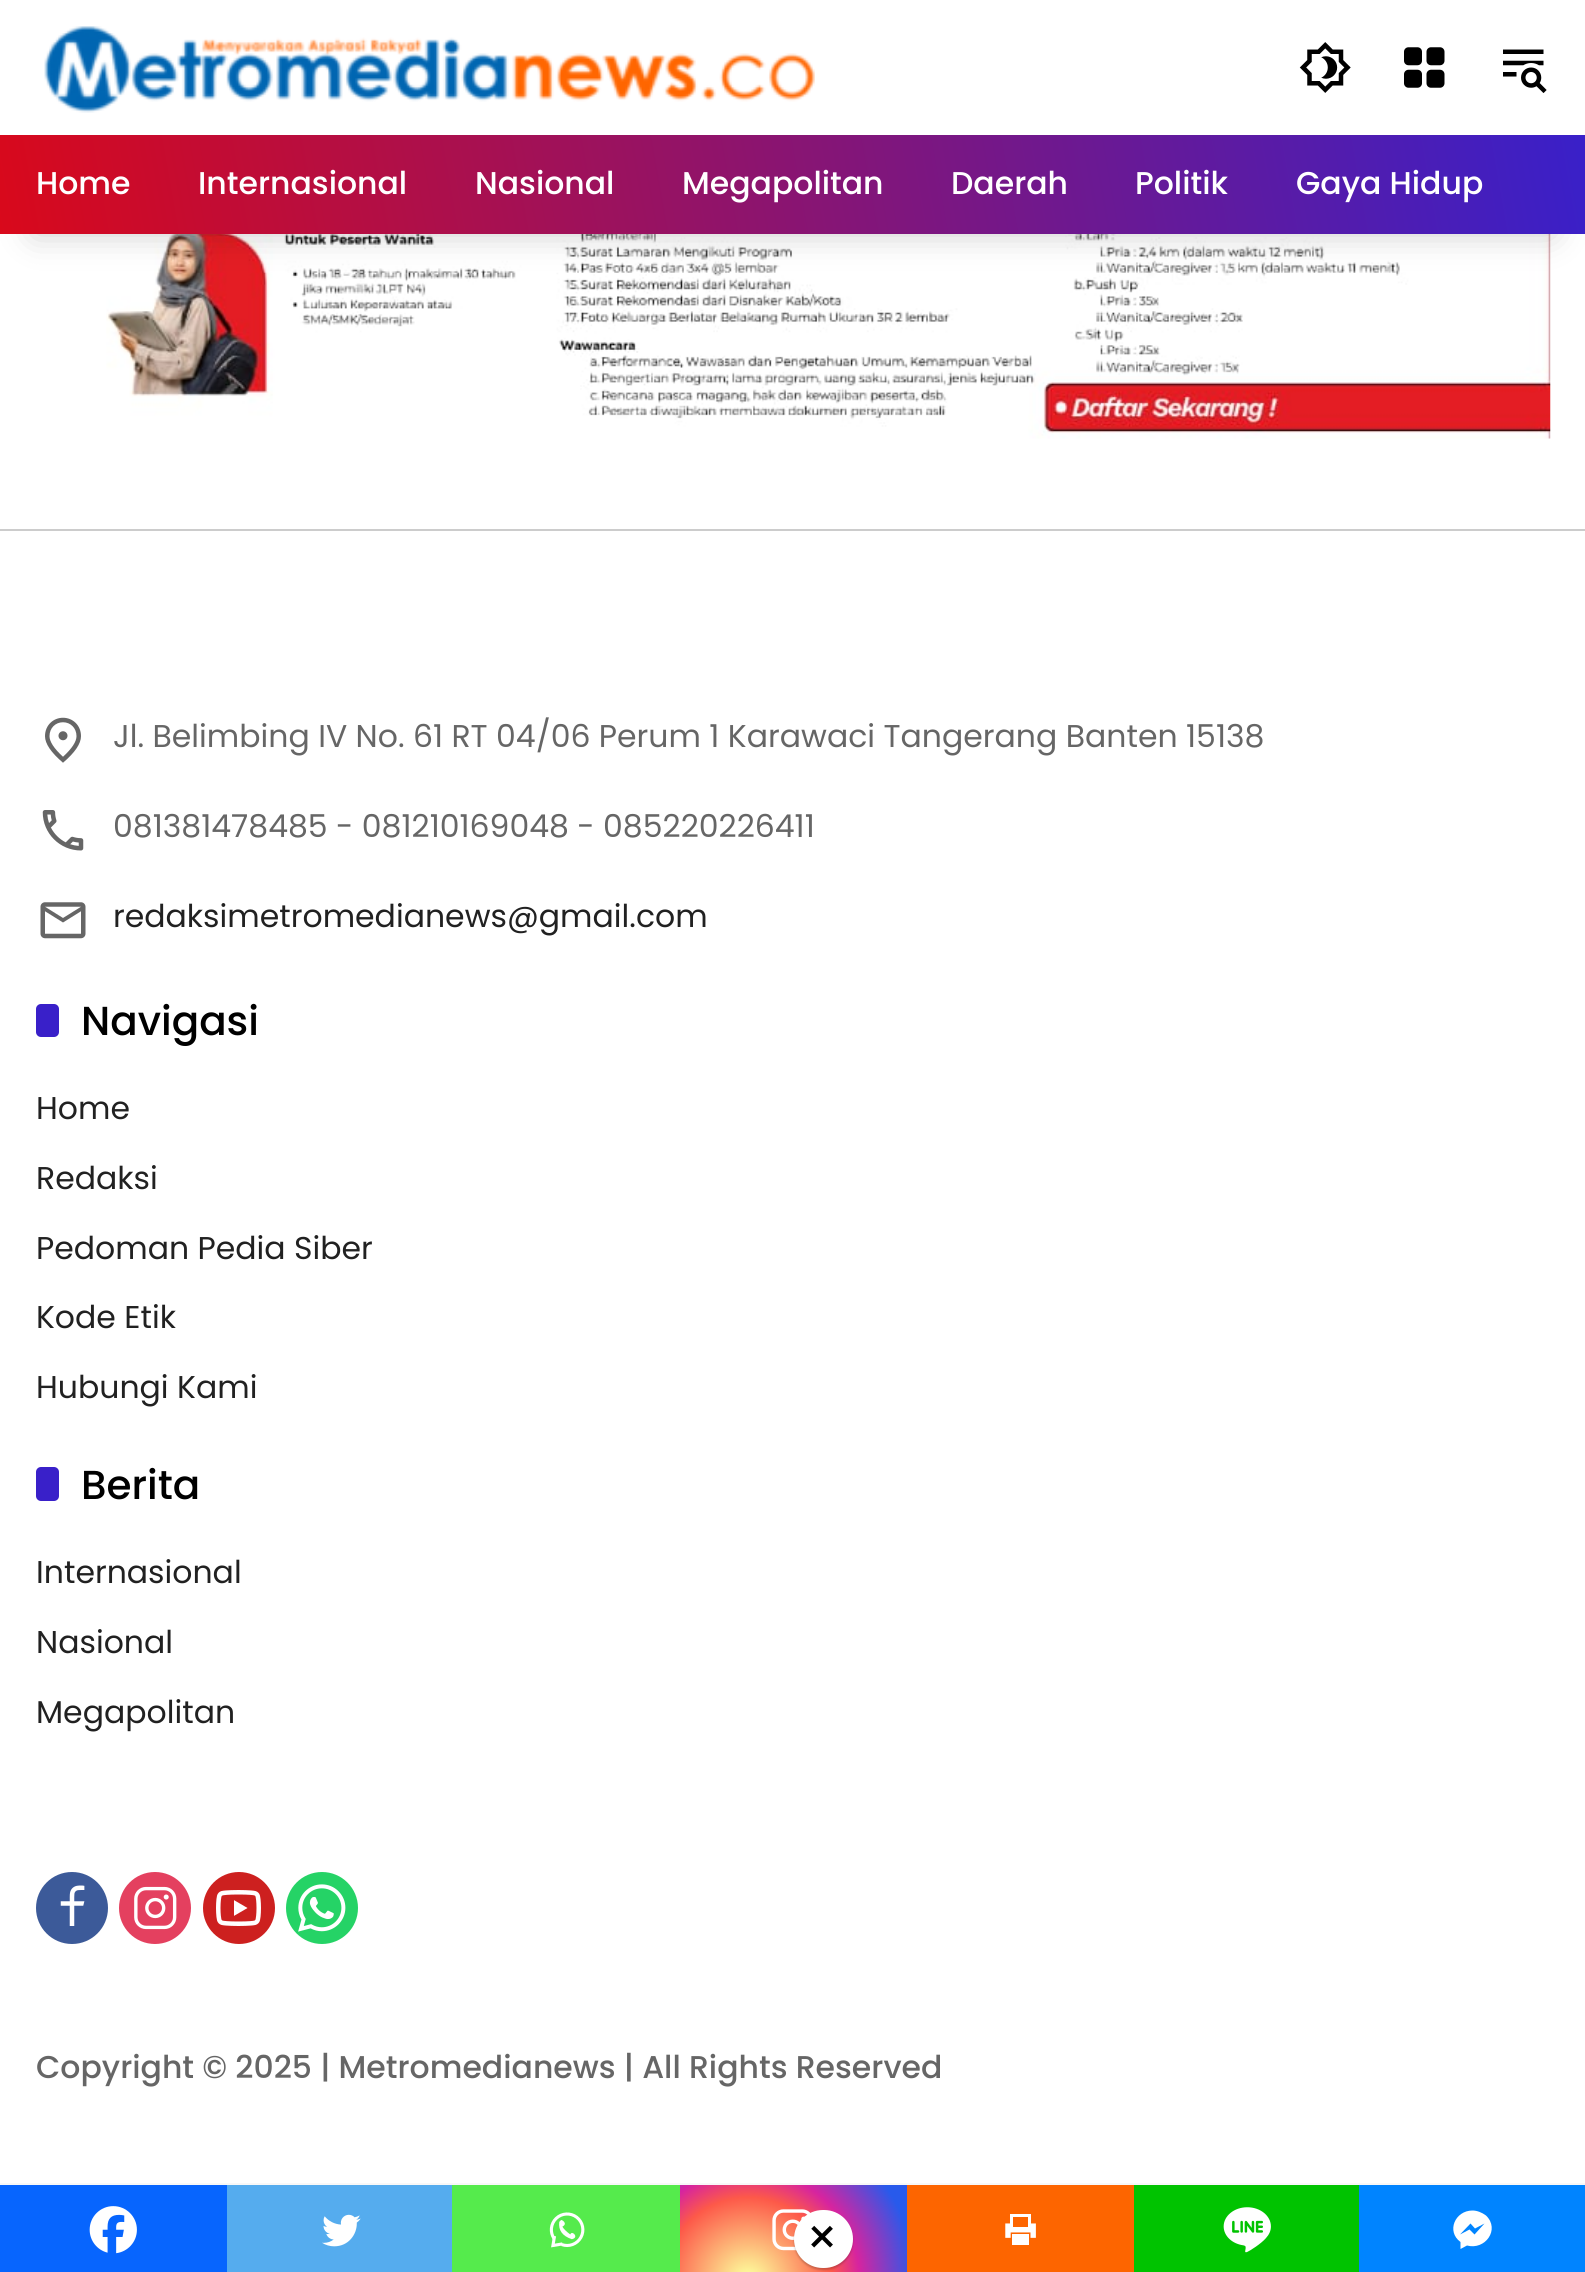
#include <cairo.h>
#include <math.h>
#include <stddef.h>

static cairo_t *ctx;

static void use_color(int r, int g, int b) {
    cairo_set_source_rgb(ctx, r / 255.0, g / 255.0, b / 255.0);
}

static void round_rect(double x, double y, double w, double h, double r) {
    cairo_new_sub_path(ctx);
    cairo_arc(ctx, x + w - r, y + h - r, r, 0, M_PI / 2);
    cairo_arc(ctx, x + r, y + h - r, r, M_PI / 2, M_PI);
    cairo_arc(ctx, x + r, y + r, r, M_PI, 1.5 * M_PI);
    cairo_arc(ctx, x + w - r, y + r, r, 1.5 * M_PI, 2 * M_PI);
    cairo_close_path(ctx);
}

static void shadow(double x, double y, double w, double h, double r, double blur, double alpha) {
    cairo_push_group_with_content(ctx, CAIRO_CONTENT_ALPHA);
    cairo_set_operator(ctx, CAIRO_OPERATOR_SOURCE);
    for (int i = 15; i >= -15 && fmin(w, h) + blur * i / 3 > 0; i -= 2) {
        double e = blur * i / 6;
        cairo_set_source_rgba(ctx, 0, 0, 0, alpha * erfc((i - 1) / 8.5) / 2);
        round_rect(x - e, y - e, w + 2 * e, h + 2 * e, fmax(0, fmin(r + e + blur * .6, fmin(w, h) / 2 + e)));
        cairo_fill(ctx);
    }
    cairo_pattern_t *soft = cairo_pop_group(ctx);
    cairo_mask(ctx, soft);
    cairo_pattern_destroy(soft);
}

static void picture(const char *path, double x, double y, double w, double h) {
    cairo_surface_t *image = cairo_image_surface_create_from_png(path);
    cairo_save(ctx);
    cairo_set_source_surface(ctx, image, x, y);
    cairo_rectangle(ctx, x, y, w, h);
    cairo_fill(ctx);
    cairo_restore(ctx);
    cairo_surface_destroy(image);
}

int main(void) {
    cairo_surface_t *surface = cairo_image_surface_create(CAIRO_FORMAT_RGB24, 1585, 2272);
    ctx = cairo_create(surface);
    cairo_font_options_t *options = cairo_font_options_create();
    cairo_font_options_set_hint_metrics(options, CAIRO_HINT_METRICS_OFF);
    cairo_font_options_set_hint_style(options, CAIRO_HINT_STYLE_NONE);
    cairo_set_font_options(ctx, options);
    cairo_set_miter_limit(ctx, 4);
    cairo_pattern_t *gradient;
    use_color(248, 248, 248);
    cairo_paint(ctx);
    use_color(255, 255, 255);
    cairo_rectangle(ctx, 0, 234, 1585, 1949);
    cairo_fill(ctx);
    cairo_rectangle(ctx, 0, 0, 1585, 135);
    cairo_fill(ctx);
    picture("img1.png", 44, 26, 771, 87);
    picture("img2.png", 1299, 42, 52, 51);
    picture("img3.png", 1404, 47, 41, 41);
    picture("img4.png", 1503, 49, 44, 44);
    picture("img5.png", 106, 234, 1445, 205);
    use_color(0, 0, 0);
    shadow(34, 203, 1519, 31, 0, 17, 0.2);
    gradient = cairo_pattern_create_linear(15, 322, 1571, 47);
    cairo_pattern_add_color_stop_rgba(gradient, 0, 0.851, 0.035, 0.106, 1);
    cairo_pattern_add_color_stop_rgba(gradient, 1, 0.224, 0.125, 0.788, 1);
    cairo_set_source(ctx, gradient);
    cairo_pattern_destroy(gradient);
    cairo_rectangle(ctx, 0, 135, 1585, 99);
    cairo_fill(ctx);
    cairo_select_font_face(ctx, "Poppins Medium", CAIRO_FONT_SLANT_NORMAL, CAIRO_FONT_WEIGHT_NORMAL);
    cairo_set_font_size(ctx, 31.5);
    use_color(255, 255, 255);
    cairo_move_to(ctx, 36, 194);
    cairo_show_text(ctx, "Home");
    cairo_move_to(ctx, 198, 194);
    cairo_show_text(ctx, "Internasional");
    cairo_move_to(ctx, 475, 194);
    cairo_show_text(ctx, "Nasional");
    cairo_move_to(ctx, 682, 194);
    cairo_show_text(ctx, "Megapolitan");
    cairo_move_to(ctx, 951, 194);
    cairo_show_text(ctx, "Daerah");
    cairo_move_to(ctx, 1135, 194);
    cairo_show_text(ctx, "Politik");
    cairo_move_to(ctx, 1296, 194);
    cairo_show_text(ctx, "Gaya Hidup");
    use_color(7, 101, 254);
    cairo_rectangle(ctx, 0, 2185, 227, 87);
    cairo_fill(ctx);
    picture("img6.png", 89, 2206, 48, 48);
    use_color(85, 172, 238);
    cairo_rectangle(ctx, 227, 2185, 225, 87);
    cairo_fill(ctx);
    picture("img7.png", 322, 2214, 39, 33);
    use_color(85, 235, 76);
    cairo_rectangle(ctx, 452, 2185, 228, 87);
    cairo_fill(ctx);
    picture("img8.png", 549, 2212, 36, 36);
    gradient = cairo_pattern_create_radial(748, 2281, 0, 748, 2281, 186);
    cairo_pattern_add_color_stop_rgba(gradient, 0, 0.992, 0.957, 0.592, 1);
    cairo_pattern_add_color_stop_rgba(gradient, 0.05, 0.992, 0.957, 0.592, 1);
    cairo_pattern_add_color_stop_rgba(gradient, 0.45, 0.992, 0.349, 0.286, 1);
    cairo_pattern_add_color_stop_rgba(gradient, 0.6, 0.839, 0.141, 0.624, 1);
    cairo_pattern_add_color_stop_rgba(gradient, 0.9, 0.157, 0.353, 0.922, 1);
    cairo_set_source(ctx, gradient);
    cairo_pattern_destroy(gradient);
    cairo_rectangle(ctx, 680, 2185, 227, 87);
    cairo_fill(ctx);
    picture("img9.png", 772, 2209, 39, 42);
    use_color(253, 101, 0);
    cairo_rectangle(ctx, 907, 2185, 227, 87);
    cairo_fill(ctx);
    picture("img10.png", 1005, 2214, 31, 31);
    use_color(0, 195, 0);
    cairo_rectangle(ctx, 1134, 2185, 225, 87);
    cairo_fill(ctx);
    picture("img11.png", 1223, 2207, 48, 46);
    use_color(0, 132, 255);
    cairo_rectangle(ctx, 1359, 2185, 226, 87);
    cairo_fill(ctx);
    use_color(255, 255, 255);
    cairo_new_path(ctx);
    cairo_move_to(ctx, 1472.5, 2210.5);
    cairo_curve_to(ctx, 1455, 2210.5, 1446, 2231.5, 1460.5, 2242);
    cairo_line_to(ctx, 1460.5, 2249);
    cairo_line_to(ctx, 1467, 2245.5);
    cairo_curve_to(ctx, 1485, 2250.5, 1500.5, 2229.5, 1486, 2215.5);
    cairo_curve_to(ctx, 1482, 2212.5, 1477, 2210.5, 1472.5, 2210.5);
    cairo_close_path(ctx);
    cairo_move_to(ctx, 1474.5, 2234.5);
    cairo_line_to(ctx, 1469.5, 2229.5);
    cairo_line_to(ctx, 1460, 2234.5);
    cairo_line_to(ctx, 1470.5, 2223.5);
    cairo_line_to(ctx, 1475, 2228.5);
    cairo_line_to(ctx, 1484.5, 2223.5);
    cairo_close_path(ctx);
    cairo_fill(ctx);
    use_color(204, 204, 204);
    cairo_rectangle(ctx, 0, 529, 1585, 2);
    cairo_fill(ctx);
    picture("img12.png", 45, 717, 36, 46);
    cairo_select_font_face(ctx, "Poppins", CAIRO_FONT_SLANT_NORMAL, CAIRO_FONT_WEIGHT_NORMAL);
    use_color(102, 102, 102);
    cairo_move_to(ctx, 113, 747);
    cairo_show_text(ctx, "Jl. Belimbing IV No. 61 RT 04/06 Perum 1 Karawaci Tangerang Banten 15138");
    picture("img13.png", 42, 810, 42, 41);
    cairo_move_to(ctx, 113, 837);
    cairo_show_text(ctx, "081381478485 - 081210169048 - 085220226411");
    picture("img14.png", 40, 902, 46, 37);
    use_color(33, 33, 33);
    cairo_move_to(ctx, 113, 927);
    cairo_show_text(ctx, "redaksimetromedianews@gmail.com");
    use_color(57, 32, 201);
    round_rect(36, 1004, 23, 33, 5);
    cairo_fill(ctx);
    cairo_select_font_face(ctx, "Poppins Medium", CAIRO_FONT_SLANT_NORMAL, CAIRO_FONT_WEIGHT_NORMAL);
    cairo_set_font_size(ctx, 40.5);
    use_color(0, 0, 0);
    cairo_move_to(ctx, 81, 1035);
    cairo_show_text(ctx, "Navigasi");
    cairo_select_font_face(ctx, "Poppins", CAIRO_FONT_SLANT_NORMAL, CAIRO_FONT_WEIGHT_NORMAL);
    cairo_set_font_size(ctx, 31.5);
    use_color(33, 33, 33);
    cairo_move_to(ctx, 36, 1119);
    cairo_show_text(ctx, "Home");
    cairo_move_to(ctx, 36, 1189);
    cairo_show_text(ctx, "Redaksi");
    cairo_move_to(ctx, 36, 1259);
    cairo_show_text(ctx, "Pedoman Pedia Siber");
    cairo_move_to(ctx, 36, 1328);
    cairo_show_text(ctx, "Kode Etik");
    cairo_move_to(ctx, 36, 1398);
    cairo_show_text(ctx, "Hubungi Kami");
    use_color(57, 32, 201);
    round_rect(36, 1467, 23, 34, 5);
    cairo_fill(ctx);
    cairo_select_font_face(ctx, "Poppins Medium", CAIRO_FONT_SLANT_NORMAL, CAIRO_FONT_WEIGHT_NORMAL);
    cairo_set_font_size(ctx, 40.5);
    use_color(0, 0, 0);
    cairo_move_to(ctx, 81, 1499);
    cairo_show_text(ctx, "Berita");
    cairo_select_font_face(ctx, "Poppins", CAIRO_FONT_SLANT_NORMAL, CAIRO_FONT_WEIGHT_NORMAL);
    cairo_set_font_size(ctx, 31.5);
    use_color(33, 33, 33);
    cairo_move_to(ctx, 36, 1583);
    cairo_show_text(ctx, "Internasional");
    cairo_move_to(ctx, 36, 1653);
    cairo_show_text(ctx, "Nasional");
    cairo_move_to(ctx, 36, 1723);
    cairo_show_text(ctx, "Megapolitan");
    use_color(60, 90, 153);
    cairo_new_path(ctx);
    cairo_arc(ctx, 72, 1908, 36, 0, 2 * M_PI);
    cairo_fill(ctx);
    picture("img15.png", 60, 1885, 25, 41);
    use_color(228, 64, 95);
    cairo_arc(ctx, 155, 1908, 36, 0, 2 * M_PI);
    cairo_fill(ctx);
    picture("img16.png", 134, 1886, 43, 44);
    use_color(205, 32, 31);
    cairo_arc(ctx, 239, 1908, 36, 0, 2 * M_PI);
    cairo_fill(ctx);
    picture("img17.png", 216, 1890, 45, 36);
    use_color(37, 211, 102);
    cairo_arc(ctx, 322, 1908, 36, 0, 2 * M_PI);
    cairo_fill(ctx);
    picture("img18.png", 298, 1884, 48, 48);
    cairo_select_font_face(ctx, "Poppins Medium", CAIRO_FONT_SLANT_NORMAL, CAIRO_FONT_WEIGHT_NORMAL);
    use_color(102, 102, 102);
    cairo_move_to(ctx, 36, 2078);
    cairo_show_text(ctx, "Copyright © 2025 | Metromedianews | All Rights Reserved");
    use_color(0, 0, 0);
    shadow(794, 2212, 59, 58, 29, 1, 0.2);
    use_color(255, 255, 255);
    round_rect(794, 2210, 59, 58, 29);
    cairo_fill(ctx);
    cairo_select_font_face(ctx, "Poppins", CAIRO_FONT_SLANT_NORMAL, CAIRO_FONT_WEIGHT_NORMAL);
    cairo_set_font_size(ctx, 50);
    use_color(0, 0, 0);
    cairo_move_to(ctx, 806, 2255);
    cairo_show_text(ctx, "×");
    cairo_surface_write_to_png(surface, "result.png");
    cairo_font_options_destroy(options);
    cairo_destroy(ctx);
    cairo_surface_destroy(surface);
    return 0;
}
